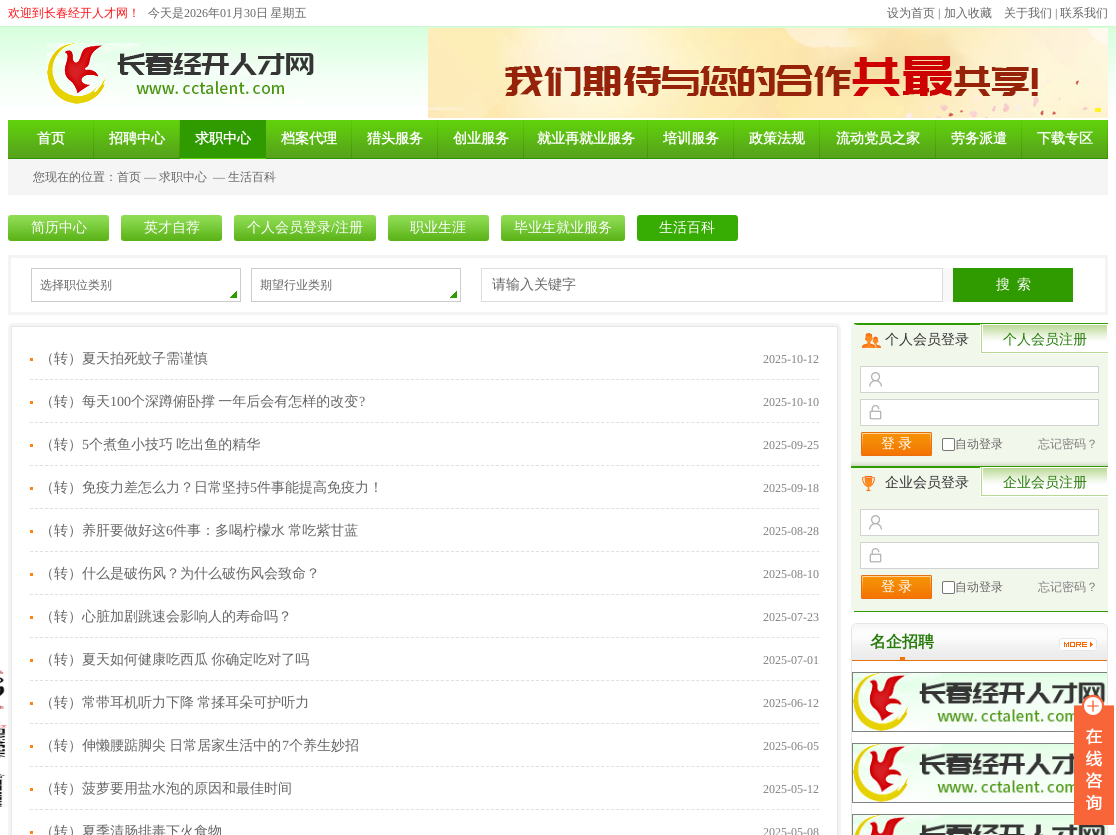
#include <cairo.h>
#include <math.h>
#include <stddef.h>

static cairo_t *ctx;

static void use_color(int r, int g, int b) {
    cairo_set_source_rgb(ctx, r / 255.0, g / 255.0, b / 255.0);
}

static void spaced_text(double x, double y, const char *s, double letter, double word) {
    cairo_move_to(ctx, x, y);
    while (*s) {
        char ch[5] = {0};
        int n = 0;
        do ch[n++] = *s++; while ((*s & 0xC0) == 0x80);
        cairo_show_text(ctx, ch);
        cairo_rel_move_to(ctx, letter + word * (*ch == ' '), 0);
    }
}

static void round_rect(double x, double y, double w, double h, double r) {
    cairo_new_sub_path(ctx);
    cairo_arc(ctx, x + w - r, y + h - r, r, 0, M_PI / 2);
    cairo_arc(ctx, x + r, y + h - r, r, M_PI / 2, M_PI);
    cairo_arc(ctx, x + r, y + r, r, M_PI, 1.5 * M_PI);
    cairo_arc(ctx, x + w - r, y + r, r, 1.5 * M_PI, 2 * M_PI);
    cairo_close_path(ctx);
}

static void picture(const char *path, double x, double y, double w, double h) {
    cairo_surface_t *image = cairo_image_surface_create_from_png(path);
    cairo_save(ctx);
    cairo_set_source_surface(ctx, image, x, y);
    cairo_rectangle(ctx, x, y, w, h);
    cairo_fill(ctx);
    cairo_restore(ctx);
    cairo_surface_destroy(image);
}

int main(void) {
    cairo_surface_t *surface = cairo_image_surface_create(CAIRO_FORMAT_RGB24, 1116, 835);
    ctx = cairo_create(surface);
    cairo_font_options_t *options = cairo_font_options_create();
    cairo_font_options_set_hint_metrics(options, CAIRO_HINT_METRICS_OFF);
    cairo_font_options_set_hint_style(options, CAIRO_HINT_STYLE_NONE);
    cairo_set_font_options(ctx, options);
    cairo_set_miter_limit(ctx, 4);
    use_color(255, 255, 255);
    cairo_paint(ctx);
    cairo_select_font_face(ctx, "WenQuanYi Zen Hei Medium", CAIRO_FONT_SLANT_NORMAL, CAIRO_FONT_WEIGHT_NORMAL);
    cairo_set_font_size(ctx, 12);
    use_color(253, 19, 26);
    cairo_move_to(ctx, 8, 17);
    cairo_show_text(ctx, "欢迎到长春经开人才网！");
    use_color(102, 102, 102);
    cairo_move_to(ctx, 148, 17);
    cairo_show_text(ctx, "今天是");
    cairo_select_font_face(ctx, "Liberation Serif", CAIRO_FONT_SLANT_NORMAL, CAIRO_FONT_WEIGHT_NORMAL);
    cairo_move_to(ctx, 184, 17);
    cairo_show_text(ctx, "2026");
    cairo_select_font_face(ctx, "WenQuanYi Zen Hei Medium", CAIRO_FONT_SLANT_NORMAL, CAIRO_FONT_WEIGHT_NORMAL);
    cairo_move_to(ctx, 208, 17);
    cairo_show_text(ctx, "年");
    cairo_select_font_face(ctx, "Liberation Serif", CAIRO_FONT_SLANT_NORMAL, CAIRO_FONT_WEIGHT_NORMAL);
    cairo_move_to(ctx, 220, 17);
    cairo_show_text(ctx, "01");
    cairo_select_font_face(ctx, "WenQuanYi Zen Hei Medium", CAIRO_FONT_SLANT_NORMAL, CAIRO_FONT_WEIGHT_NORMAL);
    cairo_move_to(ctx, 232, 17);
    cairo_show_text(ctx, "月");
    cairo_select_font_face(ctx, "Liberation Serif", CAIRO_FONT_SLANT_NORMAL, CAIRO_FONT_WEIGHT_NORMAL);
    cairo_move_to(ctx, 244, 17);
    cairo_show_text(ctx, "30");
    cairo_select_font_face(ctx, "WenQuanYi Zen Hei Medium", CAIRO_FONT_SLANT_NORMAL, CAIRO_FONT_WEIGHT_NORMAL);
    spaced_text(256, 17, "日 星期五", 0, -1);
    cairo_move_to(ctx, 887, 17);
    cairo_show_text(ctx, "设为首页");
    cairo_select_font_face(ctx, "Liberation Serif", CAIRO_FONT_SLANT_NORMAL, CAIRO_FONT_WEIGHT_NORMAL);
    cairo_move_to(ctx, 938, 17);
    cairo_show_text(ctx, "|");
    cairo_select_font_face(ctx, "WenQuanYi Zen Hei Medium", CAIRO_FONT_SLANT_NORMAL, CAIRO_FONT_WEIGHT_NORMAL);
    cairo_move_to(ctx, 944, 17);
    cairo_show_text(ctx, "加入收藏");
    cairo_move_to(ctx, 1004, 17);
    cairo_show_text(ctx, "关于我们");
    cairo_select_font_face(ctx, "Liberation Serif", CAIRO_FONT_SLANT_NORMAL, CAIRO_FONT_WEIGHT_NORMAL);
    cairo_move_to(ctx, 1055, 17);
    cairo_show_text(ctx, "|");
    cairo_select_font_face(ctx, "WenQuanYi Zen Hei Medium", CAIRO_FONT_SLANT_NORMAL, CAIRO_FONT_WEIGHT_NORMAL);
    cairo_move_to(ctx, 1060, 17);
    cairo_show_text(ctx, "联系我们");
    picture("img1.png", 0, 26, 1116, 80);
    picture("img2.png", 47, 43, 270, 61);
    picture("img3.png", 428, 28, 680, 90);
    use_color(255, 243, 32);
    cairo_rectangle(ctx, 1095, 108, 6, 4);
    cairo_fill(ctx);
    picture("img4.png", 8, 120, 1099, 38);
    picture("img5.png", 93, 120, 1, 38);
    use_color(46, 145, 3);
    cairo_rectangle(ctx, 8, 158, 172, 1);
    cairo_fill(ctx);
    cairo_select_font_face(ctx, "WenQuanYi Zen Hei", CAIRO_FONT_SLANT_NORMAL, CAIRO_FONT_WEIGHT_BOLD);
    cairo_set_font_size(ctx, 14);
    use_color(255, 255, 255);
    cairo_move_to(ctx, 37, 143);
    cairo_show_text(ctx, "首页");
    picture("img5.png", 179, 120, 1, 38);
    cairo_move_to(ctx, 109, 143);
    cairo_show_text(ctx, "招聘中心");
    use_color(47, 155, 0);
    cairo_rectangle(ctx, 180, 120, 86, 38);
    cairo_fill(ctx);
    use_color(90, 207, 2);
    cairo_rectangle(ctx, 180, 158, 86, 1);
    cairo_fill(ctx);
    use_color(255, 255, 255);
    cairo_move_to(ctx, 195, 143);
    cairo_show_text(ctx, "求职中心");
    picture("img5.png", 351, 120, 1, 38);
    use_color(46, 145, 3);
    cairo_rectangle(ctx, 266, 158, 842, 1);
    cairo_fill(ctx);
    use_color(255, 255, 255);
    cairo_move_to(ctx, 281, 143);
    cairo_show_text(ctx, "档案代理");
    picture("img5.png", 437, 120, 1, 38);
    cairo_move_to(ctx, 367, 143);
    cairo_show_text(ctx, "猎头服务");
    picture("img5.png", 523, 120, 1, 38);
    cairo_move_to(ctx, 453, 143);
    cairo_show_text(ctx, "创业服务");
    picture("img5.png", 647, 120, 1, 38);
    cairo_move_to(ctx, 537, 143);
    cairo_show_text(ctx, "就业再就业服务");
    picture("img5.png", 733, 120, 1, 38);
    cairo_move_to(ctx, 663, 143);
    cairo_show_text(ctx, "培训服务");
    picture("img5.png", 819, 120, 1, 38);
    cairo_move_to(ctx, 749, 143);
    cairo_show_text(ctx, "政策法规");
    picture("img5.png", 935, 120, 1, 38);
    cairo_move_to(ctx, 836, 143);
    cairo_show_text(ctx, "流动党员之家");
    picture("img5.png", 1021, 120, 1, 38);
    cairo_move_to(ctx, 951, 143);
    cairo_show_text(ctx, "劳务派遣");
    picture("img5.png", 1107, 120, 1, 38);
    cairo_move_to(ctx, 1037, 143);
    cairo_show_text(ctx, "下载专区");
    use_color(245, 245, 245);
    cairo_rectangle(ctx, 8, 159, 1100, 36);
    cairo_fill(ctx);
    cairo_select_font_face(ctx, "WenQuanYi Zen Hei Medium", CAIRO_FONT_SLANT_NORMAL, CAIRO_FONT_WEIGHT_NORMAL);
    cairo_set_font_size(ctx, 12);
    use_color(102, 102, 102);
    cairo_move_to(ctx, 33, 181);
    cairo_show_text(ctx, "您现在的位置：首页");
    cairo_select_font_face(ctx, "Liberation Serif", CAIRO_FONT_SLANT_NORMAL, CAIRO_FONT_WEIGHT_NORMAL);
    cairo_move_to(ctx, 144, 181);
    cairo_show_text(ctx, "—");
    cairo_select_font_face(ctx, "WenQuanYi Zen Hei Medium", CAIRO_FONT_SLANT_NORMAL, CAIRO_FONT_WEIGHT_NORMAL);
    cairo_move_to(ctx, 159, 181);
    cairo_show_text(ctx, "求职中心");
    cairo_select_font_face(ctx, "Liberation Serif", CAIRO_FONT_SLANT_NORMAL, CAIRO_FONT_WEIGHT_NORMAL);
    cairo_move_to(ctx, 213, 181);
    cairo_show_text(ctx, "—");
    cairo_select_font_face(ctx, "WenQuanYi Zen Hei Medium", CAIRO_FONT_SLANT_NORMAL, CAIRO_FONT_WEIGHT_NORMAL);
    cairo_move_to(ctx, 228, 181);
    cairo_show_text(ctx, "生活百科");
    picture("img6.png", 8, 215, 101, 26);
    cairo_set_font_size(ctx, 14);
    use_color(255, 255, 255);
    cairo_move_to(ctx, 31, 232);
    cairo_show_text(ctx, "简历中心");
    picture("img6.png", 121, 215, 101, 26);
    cairo_move_to(ctx, 144, 232);
    cairo_show_text(ctx, "英才自荐");
    picture("img7.png", 234, 215, 142, 26);
    cairo_move_to(ctx, 247, 232);
    cairo_show_text(ctx, "个人会员登录");
    cairo_select_font_face(ctx, "Liberation Serif", CAIRO_FONT_SLANT_NORMAL, CAIRO_FONT_WEIGHT_NORMAL);
    cairo_move_to(ctx, 331, 232);
    cairo_show_text(ctx, "/");
    cairo_select_font_face(ctx, "WenQuanYi Zen Hei Medium", CAIRO_FONT_SLANT_NORMAL, CAIRO_FONT_WEIGHT_NORMAL);
    cairo_move_to(ctx, 335, 232);
    cairo_show_text(ctx, "注册");
    picture("img6.png", 388, 215, 101, 26);
    cairo_move_to(ctx, 410, 232);
    cairo_show_text(ctx, "职业生涯");
    picture("img8.png", 501, 215, 124, 26);
    cairo_move_to(ctx, 514, 232);
    cairo_show_text(ctx, "毕业生就业服务");
    use_color(55, 172, 3);
    round_rect(637, 215, 101, 26, 3);
    cairo_fill(ctx);
    use_color(255, 255, 255);
    cairo_move_to(ctx, 659, 232);
    cairo_show_text(ctx, "生活百科");
    use_color(244, 244, 244);
    cairo_rectangle(ctx, 8, 255, 1100, 60);
    cairo_fill(ctx);
    use_color(255, 255, 255);
    cairo_rectangle(ctx, 11, 258, 1094, 54);
    cairo_fill(ctx);
    cairo_rectangle(ctx, 31.5, 268.5, 209, 33);
    use_color(204, 204, 204);
    cairo_set_line_width(ctx, 1);
    cairo_stroke(ctx);
    cairo_set_font_size(ctx, 12);
    use_color(102, 102, 102);
    cairo_move_to(ctx, 40, 289);
    cairo_show_text(ctx, "选择职位类别");
    picture("img9.png", 230, 291, 7, 7);
    cairo_rectangle(ctx, 251.5, 268.5, 209, 33);
    use_color(204, 204, 204);
    cairo_stroke(ctx);
    use_color(102, 102, 102);
    cairo_move_to(ctx, 260, 289);
    cairo_show_text(ctx, "期望行业类别");
    picture("img9.png", 450, 291, 7, 7);
    use_color(248, 248, 248);
    cairo_rectangle(ctx, 943, 268, 10, 34);
    cairo_fill(ctx);
    cairo_rectangle(ctx, 481.5, 268.5, 461, 33);
    use_color(221, 221, 221);
    cairo_stroke(ctx);
    cairo_set_font_size(ctx, 14);
    use_color(102, 102, 102);
    cairo_move_to(ctx, 492, 289);
    cairo_show_text(ctx, "请输入关键字");
    use_color(47, 155, 0);
    cairo_rectangle(ctx, 953, 268, 120, 34);
    cairo_fill(ctx);
    use_color(255, 255, 255);
    cairo_move_to(ctx, 996, 289);
    cairo_show_text(ctx, "搜");
    cairo_move_to(ctx, 1017, 289);
    cairo_show_text(ctx, "索");
    picture("img10.png", 0, 670, 8, 137);
    use_color(244, 244, 244);
    cairo_new_path(ctx);
    cairo_move_to(ctx, 14, 323);
    cairo_line_to(ctx, 835, 323);
    cairo_curve_to(ctx, 838.5, 323, 841, 325.5, 841, 329);
    cairo_line_to(ctx, 841, 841);
    cairo_line_to(ctx, 8, 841);
    cairo_line_to(ctx, 8, 329);
    cairo_curve_to(ctx, 8, 325.5, 10.5, 323, 14, 323);
    cairo_close_path(ctx);
    cairo_fill(ctx);
    use_color(255, 255, 255);
    cairo_new_path(ctx);
    cairo_move_to(ctx, 13, 326.5);
    cairo_line_to(ctx, 836, 326.5);
    cairo_curve_to(ctx, 837, 326.5, 837.5, 327, 837.5, 328);
    cairo_line_to(ctx, 837.5, 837.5);
    cairo_line_to(ctx, 11.5, 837.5);
    cairo_line_to(ctx, 11.5, 328);
    cairo_curve_to(ctx, 11.5, 327, 12, 326.5, 13, 326.5);
    cairo_close_path(ctx);
    cairo_fill_preserve(ctx);
    use_color(230, 230, 230);
    cairo_stroke(ctx);
    cairo_new_path(ctx);
    cairo_move_to(ctx, 30, 379.5);
    cairo_line_to(ctx, 819, 379.5);
    use_color(224, 224, 224);
    cairo_set_dash(ctx, (double[]){3, 2.01}, 2, 0);
    cairo_stroke(ctx);
    use_color(255, 130, 19);
    cairo_rectangle(ctx, 30, 358, 3, 3);
    cairo_fill(ctx);
    use_color(102, 102, 102);
    cairo_move_to(ctx, 40, 363);
    cairo_show_text(ctx, "（转）夏天拍死蚊子需谨慎");
    cairo_select_font_face(ctx, "Liberation Serif", CAIRO_FONT_SLANT_NORMAL, CAIRO_FONT_WEIGHT_NORMAL);
    cairo_set_font_size(ctx, 12);
    use_color(128, 128, 128);
    cairo_move_to(ctx, 763, 363);
    cairo_show_text(ctx, "2025-10-12");
    cairo_new_path(ctx);
    cairo_move_to(ctx, 30, 422.5);
    cairo_line_to(ctx, 819, 422.5);
    use_color(224, 224, 224);
    cairo_stroke(ctx);
    use_color(255, 130, 19);
    cairo_rectangle(ctx, 30, 401, 3, 3);
    cairo_fill(ctx);
    cairo_select_font_face(ctx, "WenQuanYi Zen Hei Medium", CAIRO_FONT_SLANT_NORMAL, CAIRO_FONT_WEIGHT_NORMAL);
    cairo_set_font_size(ctx, 14);
    use_color(102, 102, 102);
    cairo_move_to(ctx, 40, 406);
    cairo_show_text(ctx, "（转）每天");
    cairo_select_font_face(ctx, "Liberation Serif", CAIRO_FONT_SLANT_NORMAL, CAIRO_FONT_WEIGHT_NORMAL);
    cairo_move_to(ctx, 110, 406);
    cairo_show_text(ctx, "100");
    cairo_select_font_face(ctx, "WenQuanYi Zen Hei Medium", CAIRO_FONT_SLANT_NORMAL, CAIRO_FONT_WEIGHT_NORMAL);
    spaced_text(131, 406, "个深蹲俯卧撑 一年后会有怎样的改变", 0, -1);
    cairo_select_font_face(ctx, "Liberation Serif", CAIRO_FONT_SLANT_NORMAL, CAIRO_FONT_WEIGHT_NORMAL);
    cairo_move_to(ctx, 359, 406);
    cairo_show_text(ctx, "?");
    cairo_set_font_size(ctx, 12);
    use_color(128, 128, 128);
    cairo_move_to(ctx, 763, 406);
    cairo_show_text(ctx, "2025-10-10");
    cairo_new_path(ctx);
    cairo_move_to(ctx, 30, 465.5);
    cairo_line_to(ctx, 819, 465.5);
    use_color(224, 224, 224);
    cairo_stroke(ctx);
    use_color(255, 130, 19);
    cairo_rectangle(ctx, 30, 444, 3, 3);
    cairo_fill(ctx);
    cairo_select_font_face(ctx, "WenQuanYi Zen Hei Medium", CAIRO_FONT_SLANT_NORMAL, CAIRO_FONT_WEIGHT_NORMAL);
    cairo_set_font_size(ctx, 14);
    use_color(102, 102, 102);
    cairo_move_to(ctx, 40, 449);
    cairo_show_text(ctx, "（转）");
    cairo_select_font_face(ctx, "Liberation Serif", CAIRO_FONT_SLANT_NORMAL, CAIRO_FONT_WEIGHT_NORMAL);
    cairo_move_to(ctx, 82, 449);
    cairo_show_text(ctx, "5");
    cairo_select_font_face(ctx, "WenQuanYi Zen Hei Medium", CAIRO_FONT_SLANT_NORMAL, CAIRO_FONT_WEIGHT_NORMAL);
    spaced_text(89, 449, "个煮鱼小技巧 吃出鱼的精华", 0, -1);
    cairo_select_font_face(ctx, "Liberation Serif", CAIRO_FONT_SLANT_NORMAL, CAIRO_FONT_WEIGHT_NORMAL);
    cairo_set_font_size(ctx, 12);
    use_color(128, 128, 128);
    cairo_move_to(ctx, 763, 449);
    cairo_show_text(ctx, "2025-09-25");
    cairo_new_path(ctx);
    cairo_move_to(ctx, 30, 508.5);
    cairo_line_to(ctx, 819, 508.5);
    use_color(224, 224, 224);
    cairo_stroke(ctx);
    use_color(255, 130, 19);
    cairo_rectangle(ctx, 30, 487, 3, 3);
    cairo_fill(ctx);
    cairo_select_font_face(ctx, "WenQuanYi Zen Hei Medium", CAIRO_FONT_SLANT_NORMAL, CAIRO_FONT_WEIGHT_NORMAL);
    cairo_set_font_size(ctx, 14);
    use_color(102, 102, 102);
    cairo_move_to(ctx, 40, 492);
    cairo_show_text(ctx, "（转）免疫力差怎么力？日常坚持");
    cairo_select_font_face(ctx, "Liberation Serif", CAIRO_FONT_SLANT_NORMAL, CAIRO_FONT_WEIGHT_NORMAL);
    cairo_move_to(ctx, 250, 492);
    cairo_show_text(ctx, "5");
    cairo_select_font_face(ctx, "WenQuanYi Zen Hei Medium", CAIRO_FONT_SLANT_NORMAL, CAIRO_FONT_WEIGHT_NORMAL);
    cairo_move_to(ctx, 257, 492);
    cairo_show_text(ctx, "件事能提高免疫力！");
    cairo_select_font_face(ctx, "Liberation Serif", CAIRO_FONT_SLANT_NORMAL, CAIRO_FONT_WEIGHT_NORMAL);
    cairo_set_font_size(ctx, 12);
    use_color(128, 128, 128);
    cairo_move_to(ctx, 763, 492);
    cairo_show_text(ctx, "2025-09-18");
    cairo_new_path(ctx);
    cairo_move_to(ctx, 30, 551.5);
    cairo_line_to(ctx, 819, 551.5);
    use_color(224, 224, 224);
    cairo_stroke(ctx);
    use_color(255, 130, 19);
    cairo_rectangle(ctx, 30, 530, 3, 3);
    cairo_fill(ctx);
    cairo_select_font_face(ctx, "WenQuanYi Zen Hei Medium", CAIRO_FONT_SLANT_NORMAL, CAIRO_FONT_WEIGHT_NORMAL);
    cairo_set_font_size(ctx, 14);
    use_color(102, 102, 102);
    cairo_move_to(ctx, 40, 535);
    cairo_show_text(ctx, "（转）养肝要做好这");
    cairo_select_font_face(ctx, "Liberation Serif", CAIRO_FONT_SLANT_NORMAL, CAIRO_FONT_WEIGHT_NORMAL);
    cairo_move_to(ctx, 166, 535);
    cairo_show_text(ctx, "6");
    cairo_select_font_face(ctx, "WenQuanYi Zen Hei Medium", CAIRO_FONT_SLANT_NORMAL, CAIRO_FONT_WEIGHT_NORMAL);
    spaced_text(173, 535, "件事：多喝柠檬水 常吃紫甘蓝", 0, -1);
    cairo_select_font_face(ctx, "Liberation Serif", CAIRO_FONT_SLANT_NORMAL, CAIRO_FONT_WEIGHT_NORMAL);
    cairo_set_font_size(ctx, 12);
    use_color(128, 128, 128);
    cairo_move_to(ctx, 763, 535);
    cairo_show_text(ctx, "2025-08-28");
    cairo_new_path(ctx);
    cairo_move_to(ctx, 30, 594.5);
    cairo_line_to(ctx, 819, 594.5);
    use_color(224, 224, 224);
    cairo_stroke(ctx);
    use_color(255, 130, 19);
    cairo_rectangle(ctx, 30, 573, 3, 3);
    cairo_fill(ctx);
    cairo_select_font_face(ctx, "WenQuanYi Zen Hei Medium", CAIRO_FONT_SLANT_NORMAL, CAIRO_FONT_WEIGHT_NORMAL);
    cairo_set_font_size(ctx, 14);
    use_color(102, 102, 102);
    cairo_move_to(ctx, 40, 578);
    cairo_show_text(ctx, "（转）什么是破伤风？为什么破伤风会致命？");
    cairo_select_font_face(ctx, "Liberation Serif", CAIRO_FONT_SLANT_NORMAL, CAIRO_FONT_WEIGHT_NORMAL);
    cairo_set_font_size(ctx, 12);
    use_color(128, 128, 128);
    cairo_move_to(ctx, 763, 578);
    cairo_show_text(ctx, "2025-08-10");
    cairo_new_path(ctx);
    cairo_move_to(ctx, 30, 637.5);
    cairo_line_to(ctx, 819, 637.5);
    use_color(224, 224, 224);
    cairo_stroke(ctx);
    use_color(255, 130, 19);
    cairo_rectangle(ctx, 30, 616, 3, 3);
    cairo_fill(ctx);
    cairo_select_font_face(ctx, "WenQuanYi Zen Hei Medium", CAIRO_FONT_SLANT_NORMAL, CAIRO_FONT_WEIGHT_NORMAL);
    cairo_set_font_size(ctx, 14);
    use_color(102, 102, 102);
    cairo_move_to(ctx, 40, 621);
    cairo_show_text(ctx, "（转）心脏加剧跳速会影响人的寿命吗？");
    cairo_select_font_face(ctx, "Liberation Serif", CAIRO_FONT_SLANT_NORMAL, CAIRO_FONT_WEIGHT_NORMAL);
    cairo_set_font_size(ctx, 12);
    use_color(128, 128, 128);
    cairo_move_to(ctx, 763, 621);
    cairo_show_text(ctx, "2025-07-23");
    cairo_new_path(ctx);
    cairo_move_to(ctx, 30, 680.5);
    cairo_line_to(ctx, 819, 680.5);
    use_color(224, 224, 224);
    cairo_stroke(ctx);
    use_color(255, 130, 19);
    cairo_rectangle(ctx, 30, 659, 3, 3);
    cairo_fill(ctx);
    cairo_select_font_face(ctx, "WenQuanYi Zen Hei Medium", CAIRO_FONT_SLANT_NORMAL, CAIRO_FONT_WEIGHT_NORMAL);
    cairo_set_font_size(ctx, 14);
    use_color(102, 102, 102);
    spaced_text(40, 664, "（转）夏天如何健康吃西瓜 你确定吃对了吗", 0, -1);
    cairo_select_font_face(ctx, "Liberation Serif", CAIRO_FONT_SLANT_NORMAL, CAIRO_FONT_WEIGHT_NORMAL);
    cairo_set_font_size(ctx, 12);
    use_color(128, 128, 128);
    cairo_move_to(ctx, 763, 664);
    cairo_show_text(ctx, "2025-07-01");
    cairo_new_path(ctx);
    cairo_move_to(ctx, 30, 723.5);
    cairo_line_to(ctx, 819, 723.5);
    use_color(224, 224, 224);
    cairo_stroke(ctx);
    use_color(255, 130, 19);
    cairo_rectangle(ctx, 30, 702, 3, 3);
    cairo_fill(ctx);
    cairo_select_font_face(ctx, "WenQuanYi Zen Hei Medium", CAIRO_FONT_SLANT_NORMAL, CAIRO_FONT_WEIGHT_NORMAL);
    cairo_set_font_size(ctx, 14);
    use_color(102, 102, 102);
    spaced_text(40, 707, "（转）常带耳机听力下降 常揉耳朵可护听力", 0, -1);
    cairo_select_font_face(ctx, "Liberation Serif", CAIRO_FONT_SLANT_NORMAL, CAIRO_FONT_WEIGHT_NORMAL);
    cairo_set_font_size(ctx, 12);
    use_color(128, 128, 128);
    cairo_move_to(ctx, 763, 707);
    cairo_show_text(ctx, "2025-06-12");
    cairo_new_path(ctx);
    cairo_move_to(ctx, 30, 766.5);
    cairo_line_to(ctx, 819, 766.5);
    use_color(224, 224, 224);
    cairo_stroke(ctx);
    use_color(255, 130, 19);
    cairo_rectangle(ctx, 30, 745, 3, 3);
    cairo_fill(ctx);
    cairo_select_font_face(ctx, "WenQuanYi Zen Hei Medium", CAIRO_FONT_SLANT_NORMAL, CAIRO_FONT_WEIGHT_NORMAL);
    cairo_set_font_size(ctx, 14);
    use_color(102, 102, 102);
    spaced_text(40, 750, "（转）伸懒腰踮脚尖 日常居家生活中的", 0, -1);
    cairo_select_font_face(ctx, "Liberation Serif", CAIRO_FONT_SLANT_NORMAL, CAIRO_FONT_WEIGHT_NORMAL);
    cairo_move_to(ctx, 282, 750);
    cairo_show_text(ctx, "7");
    cairo_select_font_face(ctx, "WenQuanYi Zen Hei Medium", CAIRO_FONT_SLANT_NORMAL, CAIRO_FONT_WEIGHT_NORMAL);
    cairo_move_to(ctx, 289, 750);
    cairo_show_text(ctx, "个养生妙招");
    cairo_select_font_face(ctx, "Liberation Serif", CAIRO_FONT_SLANT_NORMAL, CAIRO_FONT_WEIGHT_NORMAL);
    cairo_set_font_size(ctx, 12);
    use_color(128, 128, 128);
    cairo_move_to(ctx, 763, 750);
    cairo_show_text(ctx, "2025-06-05");
    cairo_new_path(ctx);
    cairo_move_to(ctx, 30, 809.5);
    cairo_line_to(ctx, 819, 809.5);
    use_color(224, 224, 224);
    cairo_stroke(ctx);
    use_color(255, 130, 19);
    cairo_rectangle(ctx, 30, 788, 3, 3);
    cairo_fill(ctx);
    cairo_select_font_face(ctx, "WenQuanYi Zen Hei Medium", CAIRO_FONT_SLANT_NORMAL, CAIRO_FONT_WEIGHT_NORMAL);
    cairo_set_font_size(ctx, 14);
    use_color(102, 102, 102);
    cairo_move_to(ctx, 40, 793);
    cairo_show_text(ctx, "（转）菠萝要用盐水泡的原因和最佳时间");
    cairo_select_font_face(ctx, "Liberation Serif", CAIRO_FONT_SLANT_NORMAL, CAIRO_FONT_WEIGHT_NORMAL);
    cairo_set_font_size(ctx, 12);
    use_color(128, 128, 128);
    cairo_move_to(ctx, 763, 793);
    cairo_show_text(ctx, "2025-05-12");
    use_color(255, 130, 19);
    cairo_rectangle(ctx, 30, 831, 3, 3);
    cairo_fill(ctx);
    cairo_select_font_face(ctx, "WenQuanYi Zen Hei Medium", CAIRO_FONT_SLANT_NORMAL, CAIRO_FONT_WEIGHT_NORMAL);
    cairo_set_font_size(ctx, 14);
    use_color(102, 102, 102);
    cairo_move_to(ctx, 40, 836);
    cairo_show_text(ctx, "（转）夏季清肠排毒下火食物");
    cairo_select_font_face(ctx, "Liberation Serif", CAIRO_FONT_SLANT_NORMAL, CAIRO_FONT_WEIGHT_NORMAL);
    cairo_set_font_size(ctx, 12);
    use_color(128, 128, 128);
    cairo_move_to(ctx, 763, 836);
    cairo_show_text(ctx, "2025-05-08");
    use_color(242, 247, 236);
    cairo_new_path(ctx);
    cairo_move_to(ctx, 857, 323);
    cairo_line_to(ctx, 1108, 323);
    cairo_line_to(ctx, 1108, 612);
    cairo_line_to(ctx, 857, 612);
    cairo_curve_to(ctx, 853.5, 612, 851, 609.5, 851, 606);
    cairo_line_to(ctx, 851, 329);
    cairo_curve_to(ctx, 851, 325.5, 853.5, 323, 857, 323);
    cairo_close_path(ctx);
    cairo_fill(ctx);
    use_color(47, 155, 0);
    cairo_rectangle(ctx, 854, 323, 254, 1);
    cairo_fill(ctx);
    cairo_rectangle(ctx, 854, 611, 254, 1);
    cairo_fill(ctx);
    picture("img11.png", 862, 333, 19, 15);
    cairo_new_path(ctx);
    cairo_move_to(ctx, 857, 324);
    cairo_line_to(ctx, 854, 325);
    cairo_line_to(ctx, 980, 325);
    cairo_line_to(ctx, 980, 324);
    cairo_close_path(ctx);
    cairo_fill(ctx);
    cairo_select_font_face(ctx, "WenQuanYi Zen Hei Medium", CAIRO_FONT_SLANT_NORMAL, CAIRO_FONT_WEIGHT_NORMAL);
    cairo_set_font_size(ctx, 14);
    use_color(51, 51, 51);
    cairo_move_to(ctx, 885, 344);
    cairo_show_text(ctx, "个人会员登录");
    picture("img12.png", 980, 324, 128, 30);
    use_color(255, 255, 255);
    cairo_rectangle(ctx, 982, 324, 126, 1);
    cairo_fill(ctx);
    use_color(36, 123, 9);
    cairo_move_to(ctx, 1003, 344);
    cairo_show_text(ctx, "个人会员注册");
    use_color(255, 255, 255);
    cairo_rectangle(ctx, 861, 367, 237, 25);
    cairo_fill(ctx);
    picture("img13.png", 869, 372, 13, 15);
    cairo_rectangle(ctx, 860.5, 366.5, 238, 26);
    use_color(210, 210, 210);
    cairo_set_dash(ctx, NULL, 0, 0);
    cairo_stroke(ctx);
    use_color(255, 255, 255);
    cairo_rectangle(ctx, 861, 400, 237, 25);
    cairo_fill(ctx);
    picture("img14.png", 869, 405, 13, 15);
    cairo_rectangle(ctx, 860.5, 399.5, 238, 26);
    use_color(210, 210, 210);
    cairo_stroke(ctx);
    picture("img15.png", 861, 432, 71, 24);
    use_color(255, 255, 255);
    spaced_text(881, 448, "登 录", 0, -1);
    round_rect(942.5, 438.5, 12, 12, 1.5);
    cairo_fill_preserve(ctx);
    use_color(118, 118, 118);
    cairo_stroke(ctx);
    cairo_set_font_size(ctx, 12);
    use_color(102, 102, 102);
    cairo_move_to(ctx, 955, 448);
    cairo_show_text(ctx, "自动登录");
    use_color(128, 128, 128);
    cairo_move_to(ctx, 1038, 448);
    cairo_show_text(ctx, "忘记密码？");
    picture("img16.png", 851, 461, 257, 5);
    use_color(47, 155, 0);
    cairo_rectangle(ctx, 851, 466, 257, 1);
    cairo_fill(ctx);
    picture("img17.png", 862, 476, 13, 15);
    cairo_rectangle(ctx, 851, 467, 129, 1);
    cairo_fill(ctx);
    cairo_set_font_size(ctx, 14);
    use_color(51, 51, 51);
    cairo_move_to(ctx, 885, 487);
    cairo_show_text(ctx, "企业会员登录");
    picture("img12.png", 980, 467, 128, 30);
    use_color(255, 255, 255);
    cairo_rectangle(ctx, 982, 467, 126, 1);
    cairo_fill(ctx);
    use_color(36, 123, 9);
    cairo_move_to(ctx, 1003, 487);
    cairo_show_text(ctx, "企业会员注册");
    use_color(255, 255, 255);
    cairo_rectangle(ctx, 861, 510, 237, 25);
    cairo_fill(ctx);
    picture("img13.png", 869, 515, 13, 15);
    cairo_rectangle(ctx, 860.5, 509.5, 238, 26);
    use_color(210, 210, 210);
    cairo_stroke(ctx);
    use_color(255, 255, 255);
    cairo_rectangle(ctx, 861, 543, 237, 25);
    cairo_fill(ctx);
    picture("img14.png", 869, 548, 13, 15);
    cairo_rectangle(ctx, 860.5, 542.5, 238, 26);
    use_color(210, 210, 210);
    cairo_stroke(ctx);
    picture("img15.png", 861, 575, 71, 24);
    use_color(255, 255, 255);
    spaced_text(881, 591, "登 录", 0, -1);
    round_rect(942.5, 581.5, 12, 12, 1.5);
    cairo_fill_preserve(ctx);
    use_color(118, 118, 118);
    cairo_stroke(ctx);
    cairo_set_font_size(ctx, 12);
    use_color(102, 102, 102);
    cairo_move_to(ctx, 955, 591);
    cairo_show_text(ctx, "自动登录");
    use_color(128, 128, 128);
    cairo_move_to(ctx, 1038, 591);
    cairo_show_text(ctx, "忘记密码？");
    cairo_new_path(ctx);
    cairo_move_to(ctx, 857, 623.5);
    cairo_line_to(ctx, 1102, 623.5);
    cairo_curve_to(ctx, 1105, 623.5, 1107.5, 626, 1107.5, 629);
    cairo_line_to(ctx, 1107.5, 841.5);
    cairo_line_to(ctx, 851.5, 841.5);
    cairo_line_to(ctx, 851.5, 629);
    cairo_curve_to(ctx, 851.5, 626, 854, 623.5, 857, 623.5);
    cairo_close_path(ctx);
    use_color(230, 230, 230);
    cairo_stroke(ctx);
    picture("img18.png", 852, 624, 255, 36);
    use_color(232, 112, 15);
    cairo_rectangle(ctx, 852, 660, 255, 1);
    cairo_fill(ctx);
    use_color(246, 116, 0);
    cairo_rectangle(ctx, 900, 657, 5, 3);
    cairo_fill(ctx);
    cairo_select_font_face(ctx, "WenQuanYi Zen Hei", CAIRO_FONT_SLANT_NORMAL, CAIRO_FONT_WEIGHT_BOLD);
    cairo_set_font_size(ctx, 16);
    use_color(36, 123, 9);
    cairo_move_to(ctx, 870, 647);
    cairo_show_text(ctx, "名企招聘");
    picture("img19.png", 1059, 638, 38, 13);
    use_color(128, 128, 128);
    cairo_new_path(ctx);
    cairo_move_to(ctx, 853, 673);
    cairo_line_to(ctx, 1107, 673);
    cairo_line_to(ctx, 1107, 672);
    cairo_line_to(ctx, 852, 672);
    cairo_line_to(ctx, 852, 732);
    cairo_line_to(ctx, 1107, 732);
    cairo_line_to(ctx, 1107, 731);
    cairo_line_to(ctx, 853, 731);
    cairo_close_path(ctx);
    cairo_fill(ctx);
    picture("img20.png", 853, 673, 254, 58);
    cairo_new_path(ctx);
    cairo_move_to(ctx, 853, 744);
    cairo_line_to(ctx, 1107, 744);
    cairo_line_to(ctx, 1107, 743);
    cairo_line_to(ctx, 852, 743);
    cairo_line_to(ctx, 852, 803);
    cairo_line_to(ctx, 1107, 803);
    cairo_line_to(ctx, 1107, 802);
    cairo_line_to(ctx, 853, 802);
    cairo_close_path(ctx);
    cairo_fill(ctx);
    picture("img21.png", 853, 744, 221, 58);
    cairo_new_path(ctx);
    cairo_move_to(ctx, 853, 815);
    cairo_line_to(ctx, 1107, 815);
    cairo_line_to(ctx, 1107, 814);
    cairo_line_to(ctx, 852, 814);
    cairo_line_to(ctx, 852, 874);
    cairo_line_to(ctx, 1107, 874);
    cairo_line_to(ctx, 1107, 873);
    cairo_line_to(ctx, 853, 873);
    cairo_close_path(ctx);
    cairo_fill(ctx);
    picture("img22.png", 853, 815, 254, 20);
    picture("img23.png", 1074, 694, 40, 131);
    cairo_surface_write_to_png(surface, "result.png");
    cairo_font_options_destroy(options);
    cairo_destroy(ctx);
    cairo_surface_destroy(surface);
    return 0;
}
